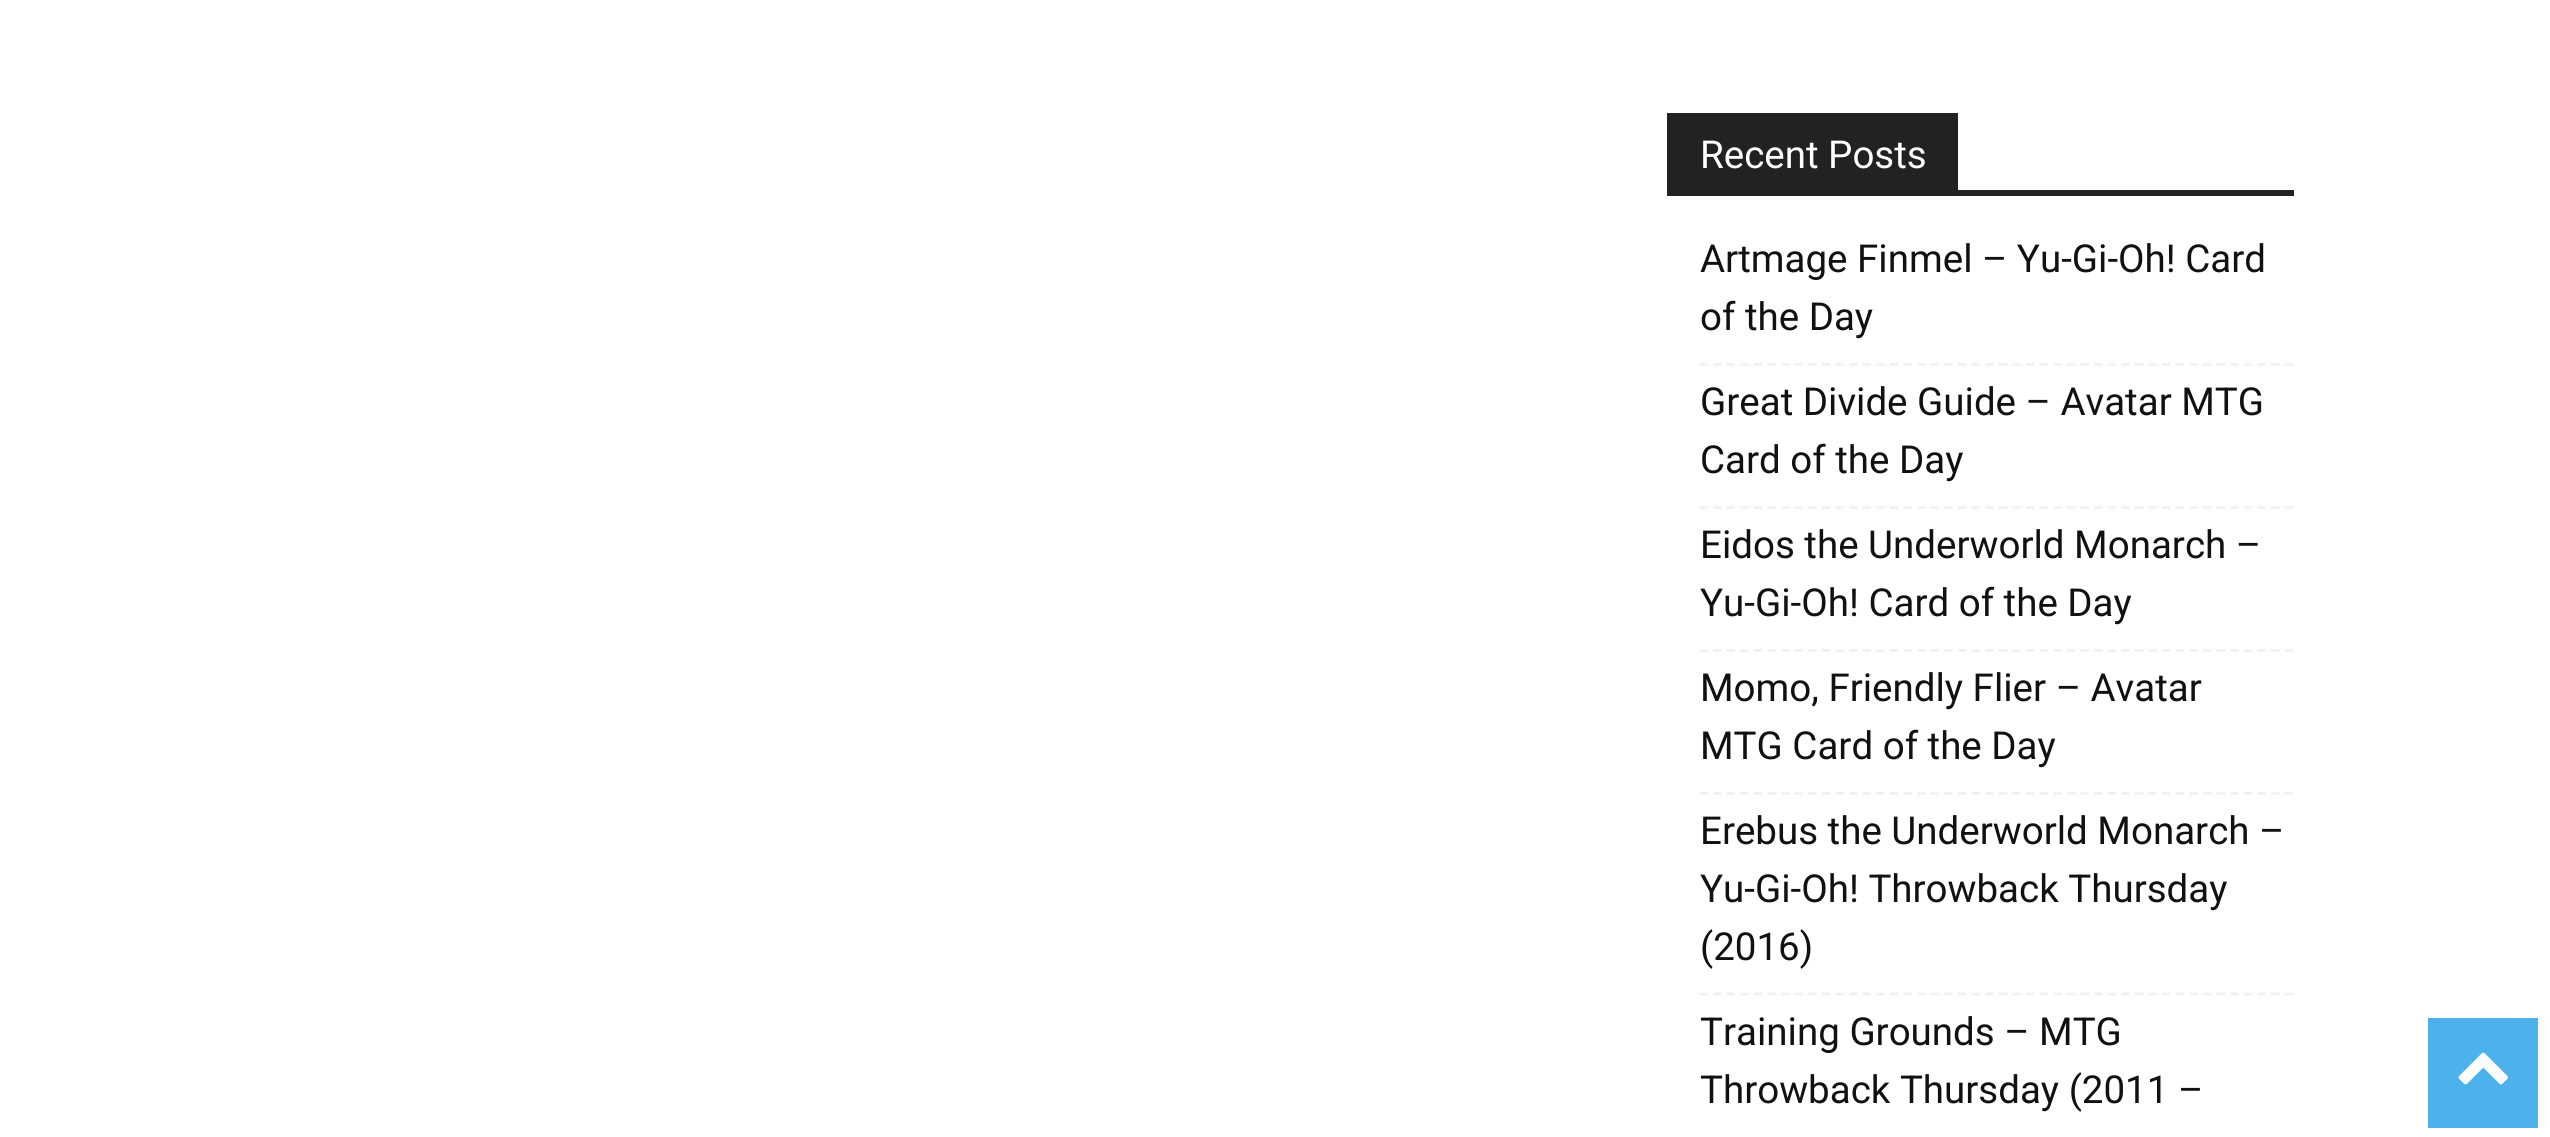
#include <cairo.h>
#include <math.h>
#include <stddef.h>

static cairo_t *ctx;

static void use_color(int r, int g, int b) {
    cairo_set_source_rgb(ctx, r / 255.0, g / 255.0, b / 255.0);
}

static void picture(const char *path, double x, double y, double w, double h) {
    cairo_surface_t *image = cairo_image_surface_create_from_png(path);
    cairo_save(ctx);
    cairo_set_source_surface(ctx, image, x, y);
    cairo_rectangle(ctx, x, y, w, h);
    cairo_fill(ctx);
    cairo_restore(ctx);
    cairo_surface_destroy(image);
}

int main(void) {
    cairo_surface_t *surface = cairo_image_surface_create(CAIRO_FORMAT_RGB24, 2550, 1137);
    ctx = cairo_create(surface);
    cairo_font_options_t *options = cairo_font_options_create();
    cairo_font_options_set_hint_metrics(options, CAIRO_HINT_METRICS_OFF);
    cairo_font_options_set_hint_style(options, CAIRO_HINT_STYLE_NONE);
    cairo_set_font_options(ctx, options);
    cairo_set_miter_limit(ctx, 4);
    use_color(255, 255, 255);
    cairo_paint(ctx);
    use_color(34, 34, 34);
    cairo_rectangle(ctx, 1667, 190, 627, 6);
    cairo_fill(ctx);
    cairo_rectangle(ctx, 1667, 113, 291, 77);
    cairo_fill(ctx);
    cairo_select_font_face(ctx, "Roboto", CAIRO_FONT_SLANT_NORMAL, CAIRO_FONT_WEIGHT_NORMAL);
    cairo_set_font_size(ctx, 38.5);
    use_color(255, 255, 255);
    cairo_move_to(ctx, 1700, 168);
    cairo_show_text(ctx, "Recent Posts");
    cairo_new_path(ctx);
    cairo_move_to(ctx, 1699.5, 364.5);
    cairo_line_to(ctx, 2293.5, 364.5);
    use_color(241, 241, 241);
    cairo_set_line_width(ctx, 2.8);
    cairo_set_dash(ctx, (double[]){8.25, 5.36}, 2, 0);
    cairo_stroke(ctx);
    use_color(17, 17, 17);
    cairo_move_to(ctx, 1700, 272);
    cairo_show_text(ctx, "Artmage Finmel – Yu-Gi-Oh! Card");
    cairo_move_to(ctx, 1700, 330);
    cairo_show_text(ctx, "of the Day");
    cairo_new_path(ctx);
    cairo_move_to(ctx, 1699.5, 507.5);
    cairo_line_to(ctx, 2293.5, 507.5);
    use_color(241, 241, 241);
    cairo_stroke(ctx);
    use_color(17, 17, 17);
    cairo_move_to(ctx, 1700, 415);
    cairo_show_text(ctx, "Great Divide Guide – Avatar MTG");
    cairo_move_to(ctx, 1700, 473);
    cairo_show_text(ctx, "Card of the Day");
    cairo_new_path(ctx);
    cairo_move_to(ctx, 1699.5, 650.5);
    cairo_line_to(ctx, 2293.5, 650.5);
    use_color(241, 241, 241);
    cairo_stroke(ctx);
    use_color(17, 17, 17);
    cairo_move_to(ctx, 1700, 558);
    cairo_show_text(ctx, "Eidos the Underworld Monarch –");
    cairo_move_to(ctx, 1700, 616);
    cairo_show_text(ctx, "Yu-Gi-Oh! Card of the Day");
    cairo_new_path(ctx);
    cairo_move_to(ctx, 1699.5, 793.5);
    cairo_line_to(ctx, 2293.5, 793.5);
    use_color(241, 241, 241);
    cairo_stroke(ctx);
    use_color(17, 17, 17);
    cairo_move_to(ctx, 1700, 701);
    cairo_show_text(ctx, "Momo, Friendly Flier – Avatar");
    cairo_move_to(ctx, 1700, 759);
    cairo_show_text(ctx, "MTG Card of the Day");
    cairo_new_path(ctx);
    cairo_move_to(ctx, 1699.5, 994);
    cairo_line_to(ctx, 2293.5, 994);
    use_color(241, 241, 241);
    cairo_stroke(ctx);
    use_color(17, 17, 17);
    cairo_move_to(ctx, 1700, 844);
    cairo_show_text(ctx, "Erebus the Underworld Monarch –");
    cairo_move_to(ctx, 1700, 902);
    cairo_show_text(ctx, "Yu-Gi-Oh! Throwback Thursday");
    cairo_move_to(ctx, 1700, 960);
    cairo_show_text(ctx, "(2016)");
    cairo_move_to(ctx, 1700, 1045);
    cairo_show_text(ctx, "Training Grounds – MTG");
    cairo_move_to(ctx, 1700, 1103);
    cairo_show_text(ctx, "Throwback Thursday (2011 –");
    use_color(77, 178, 236);
    cairo_rectangle(ctx, 2428, 1018, 110, 110);
    cairo_fill(ctx);
    picture("img1.png", 2458, 1052, 50, 33);
    cairo_surface_write_to_png(surface, "result.png");
    cairo_font_options_destroy(options);
    cairo_destroy(ctx);
    cairo_surface_destroy(surface);
    return 0;
}
